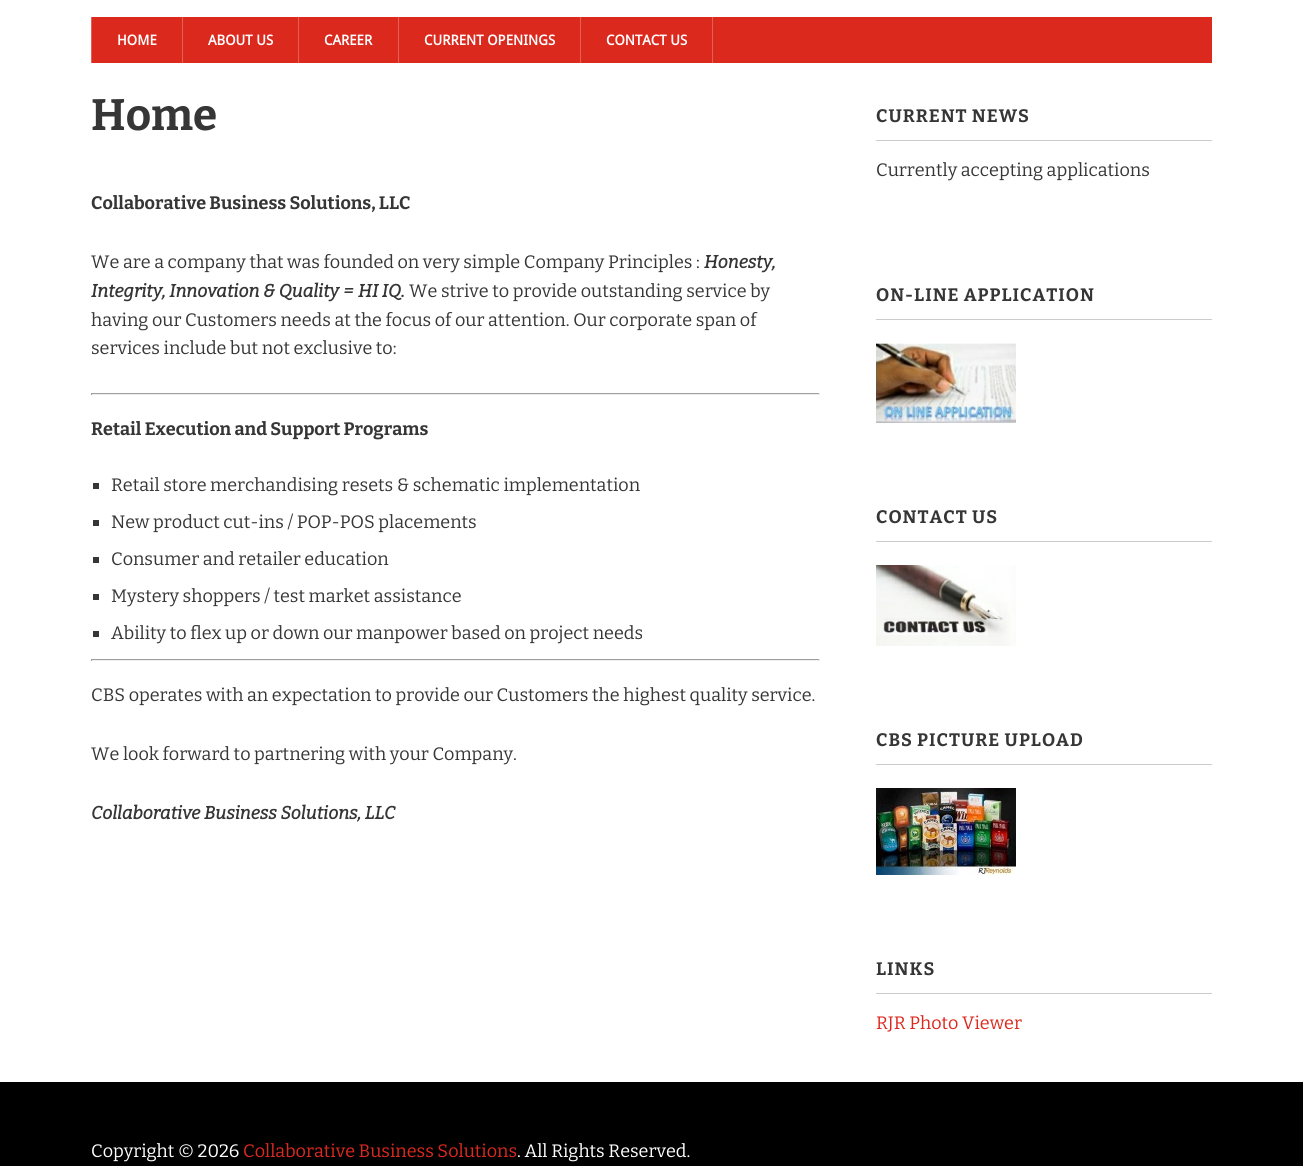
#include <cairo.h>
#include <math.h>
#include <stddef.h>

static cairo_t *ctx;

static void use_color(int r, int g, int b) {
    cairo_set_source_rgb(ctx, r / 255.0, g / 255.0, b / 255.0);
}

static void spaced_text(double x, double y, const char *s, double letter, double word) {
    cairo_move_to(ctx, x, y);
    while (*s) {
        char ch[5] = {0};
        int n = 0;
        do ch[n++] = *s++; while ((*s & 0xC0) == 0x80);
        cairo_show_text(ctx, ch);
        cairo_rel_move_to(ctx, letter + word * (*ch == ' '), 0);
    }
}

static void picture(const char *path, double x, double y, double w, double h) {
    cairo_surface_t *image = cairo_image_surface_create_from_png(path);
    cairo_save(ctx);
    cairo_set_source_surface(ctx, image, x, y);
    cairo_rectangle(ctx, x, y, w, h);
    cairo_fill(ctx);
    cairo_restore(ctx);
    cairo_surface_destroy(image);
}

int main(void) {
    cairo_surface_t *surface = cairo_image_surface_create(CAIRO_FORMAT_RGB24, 1303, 1166);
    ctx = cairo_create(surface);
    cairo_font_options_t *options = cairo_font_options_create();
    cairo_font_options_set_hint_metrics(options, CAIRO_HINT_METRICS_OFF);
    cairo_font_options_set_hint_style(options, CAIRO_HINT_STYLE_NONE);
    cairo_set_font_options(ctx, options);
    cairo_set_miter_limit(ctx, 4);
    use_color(255, 255, 255);
    cairo_paint(ctx);
    use_color(220, 41, 30);
    cairo_rectangle(ctx, 92, 17, 1120, 46);
    cairo_fill(ctx);
    use_color(229, 95, 86);
    cairo_rectangle(ctx, 182, 17, 1, 46);
    cairo_fill(ctx);
    cairo_rectangle(ctx, 91, 17, 1, 46);
    cairo_fill(ctx);
    cairo_select_font_face(ctx, "Droid Sans", CAIRO_FONT_SLANT_NORMAL, CAIRO_FONT_WEIGHT_BOLD);
    cairo_set_font_size(ctx, 14);
    use_color(255, 255, 255);
    cairo_move_to(ctx, 117, 45);
    cairo_show_text(ctx, "HOME");
    use_color(229, 95, 86);
    cairo_rectangle(ctx, 298, 17, 1, 46);
    cairo_fill(ctx);
    use_color(255, 255, 255);
    cairo_move_to(ctx, 208, 45);
    cairo_show_text(ctx, "ABOUT US");
    use_color(229, 95, 86);
    cairo_rectangle(ctx, 398, 17, 1, 46);
    cairo_fill(ctx);
    use_color(255, 255, 255);
    cairo_move_to(ctx, 324, 45);
    cairo_show_text(ctx, "CAREER");
    use_color(229, 95, 86);
    cairo_rectangle(ctx, 580, 17, 1, 46);
    cairo_fill(ctx);
    use_color(255, 255, 255);
    cairo_move_to(ctx, 424, 45);
    cairo_show_text(ctx, "CURRENT OPENINGS");
    use_color(229, 95, 86);
    cairo_rectangle(ctx, 712, 17, 1, 46);
    cairo_fill(ctx);
    use_color(255, 255, 255);
    cairo_move_to(ctx, 606, 45);
    cairo_show_text(ctx, "CONTACT US");
    cairo_select_font_face(ctx, "Bitter", CAIRO_FONT_SLANT_NORMAL, CAIRO_FONT_WEIGHT_BOLD);
    cairo_set_font_size(ctx, 44);
    use_color(54, 54, 54);
    cairo_move_to(ctx, 91, 130);
    cairo_show_text(ctx, "Home");
    cairo_set_font_size(ctx, 18);
    cairo_move_to(ctx, 91, 209);
    cairo_show_text(ctx, "Collaborative Business Solutions, LLC");
    cairo_select_font_face(ctx, "Bitter", CAIRO_FONT_SLANT_NORMAL, CAIRO_FONT_WEIGHT_NORMAL);
    cairo_move_to(ctx, 91, 268);
    cairo_show_text(ctx, "We are a company that was founded on very simple Company Principles :");
    cairo_select_font_face(ctx, "Bitter", CAIRO_FONT_SLANT_ITALIC, CAIRO_FONT_WEIGHT_BOLD);
    cairo_move_to(ctx, 704, 268);
    cairo_show_text(ctx, "Honesty,");
    cairo_move_to(ctx, 91, 297);
    cairo_show_text(ctx, "Integrity, Innovation & Quality = HI IQ.");
    cairo_select_font_face(ctx, "Bitter", CAIRO_FONT_SLANT_NORMAL, CAIRO_FONT_WEIGHT_NORMAL);
    cairo_move_to(ctx, 409, 297);
    cairo_show_text(ctx, "We strive to provide outstanding service by");
    cairo_move_to(ctx, 91, 326);
    cairo_show_text(ctx, "having our Customers needs at the focus of our attention. Our corporate span of");
    cairo_move_to(ctx, 91, 354);
    cairo_show_text(ctx, "services include but not exclusive to:");
    use_color(159, 159, 159);
    cairo_rectangle(ctx, 91, 393, 729, 1);
    cairo_fill(ctx);
    use_color(238, 238, 238);
    cairo_rectangle(ctx, 819, 393, 1, 2);
    cairo_fill(ctx);
    cairo_rectangle(ctx, 91, 394, 729, 1);
    cairo_fill(ctx);
    use_color(159, 159, 159);
    cairo_rectangle(ctx, 91, 393, 1, 2);
    cairo_fill(ctx);
    cairo_select_font_face(ctx, "Bitter", CAIRO_FONT_SLANT_NORMAL, CAIRO_FONT_WEIGHT_BOLD);
    use_color(54, 54, 54);
    cairo_move_to(ctx, 91, 435);
    cairo_show_text(ctx, "Retail Execution and Support Programs");
    cairo_rectangle(ctx, 93, 483, 6, 6);
    cairo_fill(ctx);
    cairo_select_font_face(ctx, "Bitter", CAIRO_FONT_SLANT_NORMAL, CAIRO_FONT_WEIGHT_NORMAL);
    cairo_move_to(ctx, 111, 491);
    cairo_show_text(ctx, "Retail store merchandising resets & schematic implementation");
    cairo_rectangle(ctx, 93, 520, 6, 6);
    cairo_fill(ctx);
    cairo_move_to(ctx, 111, 528);
    cairo_show_text(ctx, "New product cut-ins / POP-POS placements");
    cairo_rectangle(ctx, 93, 557, 6, 6);
    cairo_fill(ctx);
    cairo_move_to(ctx, 111, 565);
    cairo_show_text(ctx, "Consumer and retailer education");
    cairo_rectangle(ctx, 93, 594, 6, 6);
    cairo_fill(ctx);
    cairo_move_to(ctx, 111, 602);
    cairo_show_text(ctx, "Mystery shoppers / test market assistance");
    cairo_rectangle(ctx, 93, 631, 6, 6);
    cairo_fill(ctx);
    cairo_move_to(ctx, 111, 639);
    cairo_show_text(ctx, "Ability to flex up or down our manpower based on project needs");
    use_color(159, 159, 159);
    cairo_rectangle(ctx, 91, 659, 729, 1);
    cairo_fill(ctx);
    use_color(238, 238, 238);
    cairo_rectangle(ctx, 819, 659, 1, 2);
    cairo_fill(ctx);
    cairo_rectangle(ctx, 91, 660, 729, 1);
    cairo_fill(ctx);
    use_color(159, 159, 159);
    cairo_rectangle(ctx, 91, 659, 1, 2);
    cairo_fill(ctx);
    use_color(54, 54, 54);
    cairo_move_to(ctx, 91, 701);
    cairo_show_text(ctx, "CBS operates with an expectation to provide our Customers the highest quality service.");
    cairo_move_to(ctx, 91, 760);
    cairo_show_text(ctx, "We look forward to partnering with your Company.");
    cairo_select_font_face(ctx, "Bitter", CAIRO_FONT_SLANT_ITALIC, CAIRO_FONT_WEIGHT_BOLD);
    cairo_move_to(ctx, 91, 819);
    cairo_show_text(ctx, "Collaborative Business Solutions, LLC");
    use_color(204, 204, 204);
    cairo_rectangle(ctx, 876, 140, 336, 1);
    cairo_fill(ctx);
    cairo_select_font_face(ctx, "Bitter", CAIRO_FONT_SLANT_NORMAL, CAIRO_FONT_WEIGHT_BOLD);
    use_color(54, 54, 54);
    spaced_text(876, 122, "CURRENT NEWS", 1, 0);
    cairo_select_font_face(ctx, "Bitter", CAIRO_FONT_SLANT_NORMAL, CAIRO_FONT_WEIGHT_NORMAL);
    cairo_move_to(ctx, 876, 176);
    cairo_show_text(ctx, "Currently accepting applications");
    use_color(204, 204, 204);
    cairo_rectangle(ctx, 876, 319, 336, 1);
    cairo_fill(ctx);
    cairo_select_font_face(ctx, "Bitter", CAIRO_FONT_SLANT_NORMAL, CAIRO_FONT_WEIGHT_BOLD);
    use_color(54, 54, 54);
    spaced_text(876, 301, "ON-LINE APPLICATION", 1, 0);
    picture("img1.png", 876, 343, 140, 80);
    use_color(204, 204, 204);
    cairo_rectangle(ctx, 876, 541, 336, 1);
    cairo_fill(ctx);
    use_color(54, 54, 54);
    spaced_text(876, 523, "CONTACT US", 1, 0);
    picture("img2.png", 876, 565, 140, 81);
    use_color(204, 204, 204);
    cairo_rectangle(ctx, 876, 764, 336, 1);
    cairo_fill(ctx);
    use_color(54, 54, 54);
    spaced_text(876, 746, "CBS PICTURE UPLOAD", 1, 0);
    picture("img3.png", 876, 788, 140, 87);
    use_color(204, 204, 204);
    cairo_rectangle(ctx, 876, 993, 336, 1);
    cairo_fill(ctx);
    use_color(54, 54, 54);
    spaced_text(876, 975, "LINKS", 1, 0);
    cairo_select_font_face(ctx, "Bitter", CAIRO_FONT_SLANT_NORMAL, CAIRO_FONT_WEIGHT_NORMAL);
    use_color(220, 41, 30);
    cairo_move_to(ctx, 876, 1029);
    cairo_show_text(ctx, "RJR Photo Viewer");
    use_color(0, 0, 0);
    cairo_rectangle(ctx, 0, 1082, 1303, 84);
    cairo_fill(ctx);
    use_color(255, 255, 255);
    cairo_move_to(ctx, 91, 1157);
    cairo_show_text(ctx, "Copyright © 2026");
    use_color(220, 41, 30);
    cairo_move_to(ctx, 243, 1157);
    cairo_show_text(ctx, "Collaborative Business Solutions");
    use_color(255, 255, 255);
    cairo_move_to(ctx, 517, 1157);
    cairo_show_text(ctx, ". All Rights Reserved.");
    cairo_surface_write_to_png(surface, "result.png");
    cairo_font_options_destroy(options);
    cairo_destroy(ctx);
    cairo_surface_destroy(surface);
    return 0;
}
